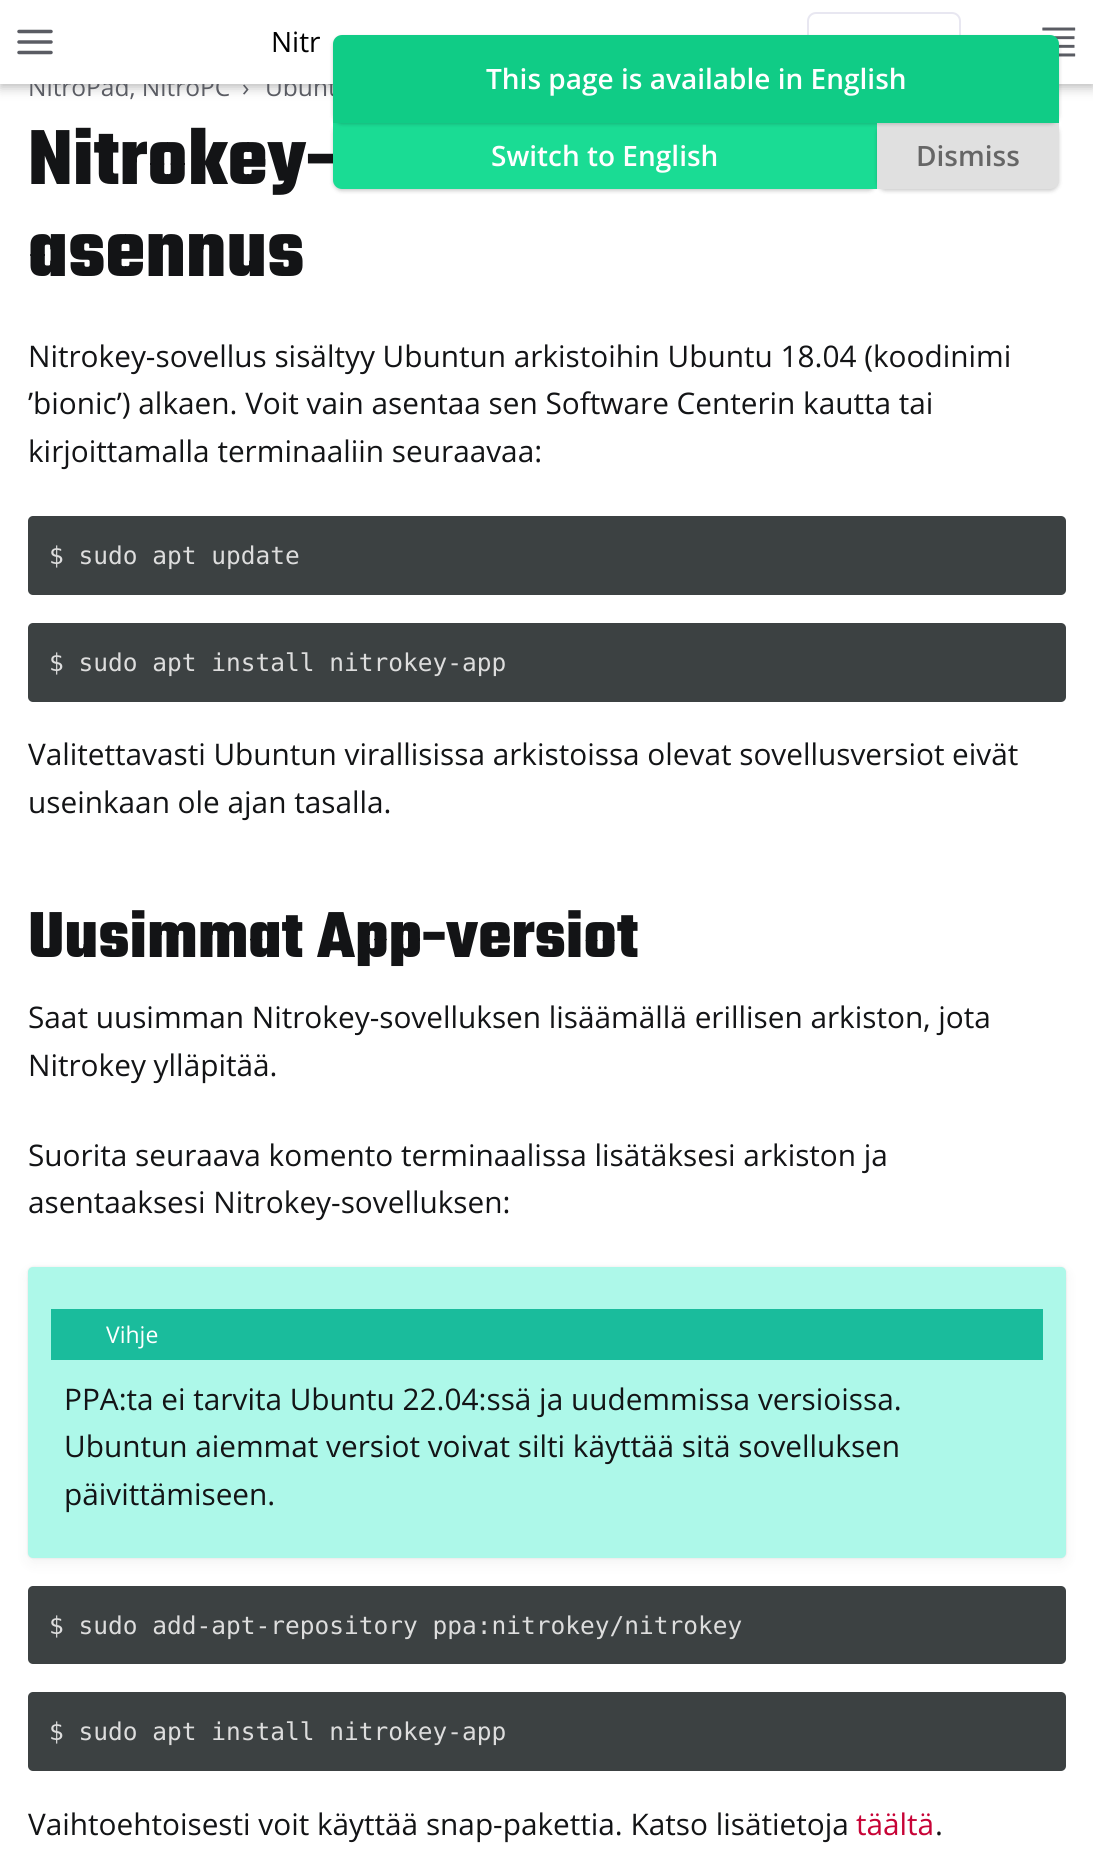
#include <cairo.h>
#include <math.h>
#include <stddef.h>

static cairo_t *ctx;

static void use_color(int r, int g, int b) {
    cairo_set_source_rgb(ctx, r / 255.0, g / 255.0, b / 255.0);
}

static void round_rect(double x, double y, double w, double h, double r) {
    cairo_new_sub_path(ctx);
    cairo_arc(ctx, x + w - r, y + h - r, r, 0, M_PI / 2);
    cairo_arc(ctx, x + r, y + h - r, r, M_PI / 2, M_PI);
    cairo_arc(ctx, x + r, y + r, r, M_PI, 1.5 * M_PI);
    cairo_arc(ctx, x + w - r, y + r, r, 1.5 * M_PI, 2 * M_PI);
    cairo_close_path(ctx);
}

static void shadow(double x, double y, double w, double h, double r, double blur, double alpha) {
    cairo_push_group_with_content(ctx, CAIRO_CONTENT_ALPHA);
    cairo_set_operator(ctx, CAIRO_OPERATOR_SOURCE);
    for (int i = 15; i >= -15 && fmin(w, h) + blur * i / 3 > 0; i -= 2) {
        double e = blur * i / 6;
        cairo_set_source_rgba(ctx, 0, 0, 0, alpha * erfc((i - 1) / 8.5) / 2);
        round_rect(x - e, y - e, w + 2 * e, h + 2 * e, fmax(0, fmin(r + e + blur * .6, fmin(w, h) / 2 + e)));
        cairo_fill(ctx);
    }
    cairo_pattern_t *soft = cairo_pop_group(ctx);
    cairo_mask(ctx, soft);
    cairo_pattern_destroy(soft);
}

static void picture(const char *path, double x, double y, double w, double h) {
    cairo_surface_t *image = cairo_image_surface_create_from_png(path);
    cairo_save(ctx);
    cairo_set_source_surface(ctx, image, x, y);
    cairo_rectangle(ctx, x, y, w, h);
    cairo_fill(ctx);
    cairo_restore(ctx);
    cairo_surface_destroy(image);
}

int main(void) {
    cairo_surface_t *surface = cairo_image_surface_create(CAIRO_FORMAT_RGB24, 1093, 1859);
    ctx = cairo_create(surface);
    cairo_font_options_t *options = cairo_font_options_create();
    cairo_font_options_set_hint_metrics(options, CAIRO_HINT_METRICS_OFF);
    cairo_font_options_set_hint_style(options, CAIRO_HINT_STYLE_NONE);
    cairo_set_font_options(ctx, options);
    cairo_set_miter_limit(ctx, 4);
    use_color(255, 255, 255);
    cairo_paint(ctx);
    use_color(0, 0, 0);
    shadow(0, 5, 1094, 84, 0, 5.5, 0.2);
    shadow(0, 0, 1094, 84, 0, 3, 0.1);
    cairo_select_font_face(ctx, "Open Sans", CAIRO_FONT_SLANT_NORMAL, CAIRO_FONT_WEIGHT_NORMAL);
    cairo_set_font_size(ctx, 24.5);
    use_color(90, 92, 99);
    cairo_move_to(ctx, 28, 96);
    cairo_show_text(ctx, "NitroPad, NitroPC");
    cairo_move_to(ctx, 265, 96);
    cairo_show_text(ctx, "Ubunt");
    use_color(255, 255, 255);
    cairo_rectangle(ctx, 0, 0, 1093, 84);
    cairo_fill(ctx);
    cairo_new_path(ctx);
    cairo_move_to(ctx, 19, 42);
    cairo_line_to(ctx, 51, 42);
    cairo_move_to(ctx, 19, 31.5);
    cairo_line_to(ctx, 51, 31.5);
    cairo_move_to(ctx, 19, 52.5);
    cairo_line_to(ctx, 51, 52.5);
    use_color(90, 92, 99);
    cairo_set_line_width(ctx, 3.5);
    cairo_set_line_cap(ctx, CAIRO_LINE_CAP_ROUND);
    cairo_set_line_join(ctx, CAIRO_LINE_JOIN_ROUND);
    cairo_stroke(ctx);
    cairo_set_font_size(ctx, 28);
    use_color(0, 0, 0);
    cairo_move_to(ctx, 271, 52);
    cairo_show_text(ctx, "Nitr");
    round_rect(808, 13, 152, 58, 8);
    use_color(232, 231, 241);
    cairo_set_line_width(ctx, 2);
    cairo_set_line_cap(ctx, CAIRO_LINE_CAP_BUTT);
    cairo_set_line_join(ctx, CAIRO_LINE_JOIN_MITER);
    cairo_stroke(ctx);
    picture("img1.png", 1042, 27, 34, 30);
    use_color(0, 0, 0);
    shadow(333, 124, 544, 67, 9, 2, 0.2);
    cairo_select_font_face(ctx, "Teko Light", CAIRO_FONT_SLANT_NORMAL, CAIRO_FONT_WEIGHT_NORMAL);
    cairo_set_font_size(ctx, 84);
    use_color(19, 20, 22);
    cairo_move_to(ctx, 28, 184);
    cairo_show_text(ctx, "Nitrokey-");
    use_color(26, 220, 148);
    cairo_new_path(ctx);
    cairo_move_to(ctx, 333, 123);
    cairo_line_to(ctx, 877, 123);
    cairo_line_to(ctx, 877, 189);
    cairo_line_to(ctx, 342, 189);
    cairo_curve_to(ctx, 337, 189, 333, 185, 333, 180);
    cairo_close_path(ctx);
    cairo_fill(ctx);
    use_color(0, 0, 0);
    shadow(877, 124, 182, 67, 9, 2, 0.2);
    use_color(224, 224, 224);
    cairo_new_path(ctx);
    cairo_move_to(ctx, 877, 123);
    cairo_line_to(ctx, 1059, 123);
    cairo_line_to(ctx, 1059, 180);
    cairo_curve_to(ctx, 1059, 185, 1055, 189, 1050, 189);
    cairo_line_to(ctx, 877, 189);
    cairo_close_path(ctx);
    cairo_fill(ctx);
    use_color(0, 0, 0);
    shadow(333, 37, 726, 87, 9, 2, 0.2);
    use_color(16, 204, 134);
    cairo_new_path(ctx);
    cairo_move_to(ctx, 342, 35);
    cairo_line_to(ctx, 1050, 35);
    cairo_curve_to(ctx, 1055, 35, 1059, 39, 1059, 44);
    cairo_line_to(ctx, 1059, 123);
    cairo_line_to(ctx, 333, 123);
    cairo_line_to(ctx, 333, 44);
    cairo_curve_to(ctx, 333, 39, 337, 35, 342, 35);
    cairo_close_path(ctx);
    cairo_fill(ctx);
    cairo_select_font_face(ctx, "Open Sans SemiBold", CAIRO_FONT_SLANT_NORMAL, CAIRO_FONT_WEIGHT_NORMAL);
    cairo_set_font_size(ctx, 28);
    use_color(255, 255, 255);
    cairo_move_to(ctx, 486, 89);
    cairo_show_text(ctx, "This page is available in English");
    cairo_move_to(ctx, 491, 166);
    cairo_show_text(ctx, "Switch to English");
    use_color(102, 102, 102);
    cairo_move_to(ctx, 916, 166);
    cairo_show_text(ctx, "Dismiss");
    cairo_select_font_face(ctx, "Open Sans", CAIRO_FONT_SLANT_NORMAL, CAIRO_FONT_WEIGHT_NORMAL);
    cairo_set_font_size(ctx, 24.5);
    use_color(90, 92, 99);
    cairo_move_to(ctx, 242, 96);
    cairo_show_text(ctx, "›");
    cairo_select_font_face(ctx, "Teko Light", CAIRO_FONT_SLANT_NORMAL, CAIRO_FONT_WEIGHT_NORMAL);
    cairo_set_font_size(ctx, 84);
    use_color(19, 20, 22);
    cairo_move_to(ctx, 28, 276);
    cairo_show_text(ctx, "asennus");
    cairo_select_font_face(ctx, "Open Sans", CAIRO_FONT_SLANT_NORMAL, CAIRO_FONT_WEIGHT_NORMAL);
    cairo_set_font_size(ctx, 29.75);
    cairo_move_to(ctx, 28, 367);
    cairo_show_text(ctx, "Nitrokey-sovellus sisältyy Ubuntun arkistoihin Ubuntu 18.04 (koodinimi");
    cairo_move_to(ctx, 28, 414);
    cairo_show_text(ctx, "’bionic’) alkaen. Voit vain asentaa sen Software Centerin kautta tai");
    cairo_move_to(ctx, 28, 462);
    cairo_show_text(ctx, "kirjoittamalla terminaaliin seuraavaa:");
    use_color(60, 65, 66);
    round_rect(28, 516, 1038, 79, 5);
    cairo_fill(ctx);
    cairo_select_font_face(ctx, "DejaVu Sans Mono", CAIRO_FONT_SLANT_NORMAL, CAIRO_FONT_WEIGHT_NORMAL);
    cairo_set_font_size(ctx, 24.5);
    use_color(221, 221, 221);
    cairo_move_to(ctx, 49, 564);
    cairo_show_text(ctx, "$ sudo apt update");
    use_color(60, 65, 66);
    round_rect(28, 623, 1038, 79, 5);
    cairo_fill(ctx);
    use_color(221, 221, 221);
    cairo_move_to(ctx, 49, 671);
    cairo_show_text(ctx, "$ sudo apt install nitrokey-app");
    cairo_select_font_face(ctx, "Open Sans", CAIRO_FONT_SLANT_NORMAL, CAIRO_FONT_WEIGHT_NORMAL);
    cairo_set_font_size(ctx, 29.75);
    use_color(19, 20, 22);
    cairo_move_to(ctx, 28, 765);
    cairo_show_text(ctx, "Valitettavasti Ubuntun virallisissa arkistoissa olevat sovellusversiot eivät");
    cairo_move_to(ctx, 28, 813);
    cairo_show_text(ctx, "useinkaan ole ajan tasalla.");
    cairo_select_font_face(ctx, "Teko Light", CAIRO_FONT_SLANT_NORMAL, CAIRO_FONT_WEIGHT_NORMAL);
    cairo_set_font_size(ctx, 70);
    cairo_move_to(ctx, 28, 957);
    cairo_show_text(ctx, "Uusimmat App-versiot");
    cairo_select_font_face(ctx, "Open Sans", CAIRO_FONT_SLANT_NORMAL, CAIRO_FONT_WEIGHT_NORMAL);
    cairo_set_font_size(ctx, 29.75);
    cairo_move_to(ctx, 28, 1028);
    cairo_show_text(ctx, "Saat uusimman Nitrokey-sovelluksen lisäämällä erillisen arkiston, jota");
    cairo_move_to(ctx, 28, 1076);
    cairo_show_text(ctx, "Nitrokey ylläpitää.");
    cairo_move_to(ctx, 28, 1166);
    cairo_show_text(ctx, "Suorita seuraava komento terminaalissa lisätäksesi arkiston ja");
    cairo_move_to(ctx, 28, 1213);
    cairo_show_text(ctx, "asentaaksesi Nitrokey-sovelluksen:");
    use_color(0, 0, 0);
    shadow(28, 1267, 1038, 291, 5, 1, 0.1);
    shadow(28, 1272, 1038, 291, 5, 7, 0.05);
    use_color(173, 248, 233);
    round_rect(28, 1267, 1038, 291, 5);
    cairo_fill(ctx);
    use_color(26, 188, 156);
    cairo_rectangle(ctx, 51, 1309, 992, 51);
    cairo_fill(ctx);
    cairo_set_font_size(ctx, 23);
    use_color(255, 255, 255);
    cairo_move_to(ctx, 106, 1343);
    cairo_show_text(ctx, "Vihje");
    cairo_set_font_size(ctx, 29.75);
    use_color(19, 20, 22);
    cairo_move_to(ctx, 64, 1410);
    cairo_show_text(ctx, "PPA:ta ei tarvita Ubuntu 22.04:ssä ja uudemmissa versioissa.");
    cairo_move_to(ctx, 64, 1457);
    cairo_show_text(ctx, "Ubuntun aiemmat versiot voivat silti käyttää sitä sovelluksen");
    cairo_move_to(ctx, 64, 1505);
    cairo_show_text(ctx, "päivittämiseen.");
    use_color(60, 65, 66);
    round_rect(28, 1586, 1038, 78, 5);
    cairo_fill(ctx);
    cairo_select_font_face(ctx, "DejaVu Sans Mono", CAIRO_FONT_SLANT_NORMAL, CAIRO_FONT_WEIGHT_NORMAL);
    cairo_set_font_size(ctx, 24.5);
    use_color(221, 221, 221);
    cairo_move_to(ctx, 49, 1634);
    cairo_show_text(ctx, "$ sudo add-apt-repository ppa:nitrokey/nitrokey");
    use_color(60, 65, 66);
    round_rect(28, 1692, 1038, 79, 5);
    cairo_fill(ctx);
    use_color(221, 221, 221);
    cairo_move_to(ctx, 49, 1740);
    cairo_show_text(ctx, "$ sudo apt install nitrokey-app");
    cairo_select_font_face(ctx, "Open Sans", CAIRO_FONT_SLANT_NORMAL, CAIRO_FONT_WEIGHT_NORMAL);
    cairo_set_font_size(ctx, 29.75);
    use_color(19, 20, 22);
    cairo_move_to(ctx, 28, 1835);
    cairo_show_text(ctx, "Vaihtoehtoisesti voit käyttää snap-pakettia. Katso lisätietoja");
    use_color(199, 3, 54);
    cairo_move_to(ctx, 856, 1835);
    cairo_show_text(ctx, "täältä");
    use_color(19, 20, 22);
    cairo_move_to(ctx, 935, 1835);
    cairo_show_text(ctx, ".");
    cairo_surface_write_to_png(surface, "result.png");
    cairo_font_options_destroy(options);
    cairo_destroy(ctx);
    cairo_surface_destroy(surface);
    return 0;
}
